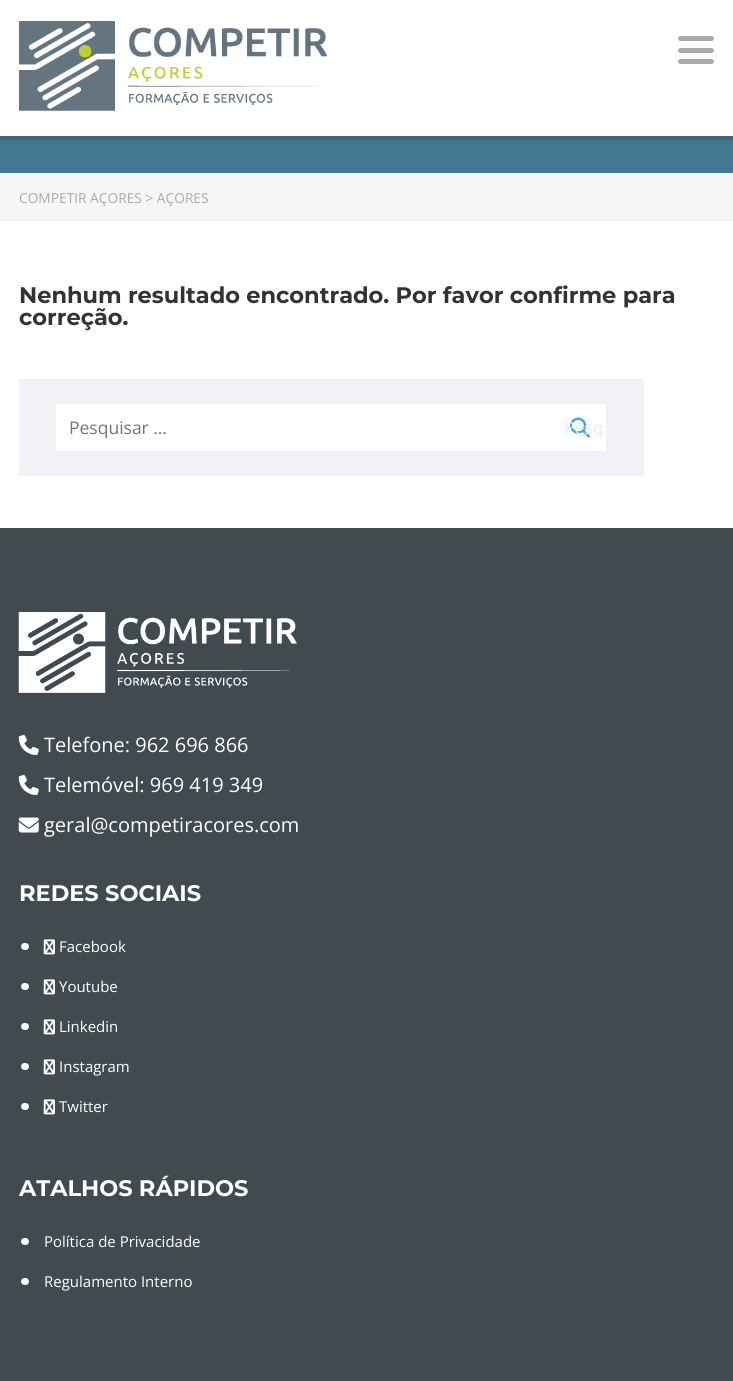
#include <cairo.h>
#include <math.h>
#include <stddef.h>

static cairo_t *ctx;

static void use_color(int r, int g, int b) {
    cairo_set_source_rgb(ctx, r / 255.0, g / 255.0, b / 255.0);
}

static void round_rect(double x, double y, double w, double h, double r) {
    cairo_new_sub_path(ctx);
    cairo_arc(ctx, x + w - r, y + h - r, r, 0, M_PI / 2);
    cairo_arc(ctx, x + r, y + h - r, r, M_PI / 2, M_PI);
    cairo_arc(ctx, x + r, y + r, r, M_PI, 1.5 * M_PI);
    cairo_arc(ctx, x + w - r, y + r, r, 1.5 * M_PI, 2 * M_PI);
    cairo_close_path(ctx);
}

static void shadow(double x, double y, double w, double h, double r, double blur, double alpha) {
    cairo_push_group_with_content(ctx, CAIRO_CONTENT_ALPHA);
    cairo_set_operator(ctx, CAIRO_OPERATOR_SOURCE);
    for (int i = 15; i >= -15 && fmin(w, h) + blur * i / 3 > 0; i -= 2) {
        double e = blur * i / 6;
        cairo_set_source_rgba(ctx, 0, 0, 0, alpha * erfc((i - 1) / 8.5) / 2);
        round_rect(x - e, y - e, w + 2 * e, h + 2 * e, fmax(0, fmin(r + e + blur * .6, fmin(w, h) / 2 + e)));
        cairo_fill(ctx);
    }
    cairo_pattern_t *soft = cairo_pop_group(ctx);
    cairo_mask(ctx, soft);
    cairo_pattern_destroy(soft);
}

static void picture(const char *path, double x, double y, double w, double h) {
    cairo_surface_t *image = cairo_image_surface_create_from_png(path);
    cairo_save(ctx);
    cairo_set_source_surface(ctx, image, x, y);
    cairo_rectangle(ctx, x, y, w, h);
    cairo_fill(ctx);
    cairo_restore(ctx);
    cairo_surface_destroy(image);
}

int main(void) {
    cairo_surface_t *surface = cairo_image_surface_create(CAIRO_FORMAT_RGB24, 733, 1381);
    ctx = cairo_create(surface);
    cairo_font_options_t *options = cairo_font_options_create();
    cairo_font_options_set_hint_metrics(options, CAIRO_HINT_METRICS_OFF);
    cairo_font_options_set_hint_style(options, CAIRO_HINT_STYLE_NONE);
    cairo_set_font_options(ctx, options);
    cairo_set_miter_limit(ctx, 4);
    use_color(255, 255, 255);
    cairo_paint(ctx);
    use_color(69, 121, 146);
    cairo_rectangle(ctx, 0, 136, 733, 37);
    cairo_fill(ctx);
    use_color(0, 0, 0);
    shadow(0, 6, 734, 137, 0, 3, 0.08);
    use_color(255, 255, 255);
    cairo_rectangle(ctx, 0, 3, 733, 133);
    cairo_fill(ctx);
    picture("img1.png", 19, 21, 309, 90);
    use_color(170, 170, 170);
    round_rect(678, 36, 36, 5, 2.5);
    cairo_fill(ctx);
    round_rect(678, 48, 36, 5, 2.5);
    cairo_fill(ctx);
    round_rect(678, 59, 36, 5, 2.5);
    cairo_fill(ctx);
    cairo_set_source_rgba(ctx, 0, 0, 0, 0.1);
    cairo_rectangle(ctx, 0, 136, 733, 4);
    cairo_fill(ctx);
    use_color(246, 246, 246);
    cairo_rectangle(ctx, 0, 173, 733, 47);
    cairo_fill(ctx);
    use_color(240, 242, 245);
    cairo_rectangle(ctx, 0, 220, 733, 1);
    cairo_fill(ctx);
    cairo_select_font_face(ctx, "Open Sans", CAIRO_FONT_SLANT_NORMAL, CAIRO_FONT_WEIGHT_NORMAL);
    cairo_set_font_size(ctx, 13.75);
    use_color(170, 170, 170);
    cairo_move_to(ctx, 19, 203);
    cairo_show_text(ctx, "COMPETIR AÇORES > AÇORES");
    cairo_select_font_face(ctx, "Montserrat", CAIRO_FONT_SLANT_NORMAL, CAIRO_FONT_WEIGHT_BOLD);
    cairo_set_font_size(ctx, 22.5);
    use_color(51, 51, 51);
    cairo_move_to(ctx, 19, 303);
    cairo_show_text(ctx, "Nenhum resultado encontrado. Por favor confirme para");
    cairo_move_to(ctx, 19, 325);
    cairo_show_text(ctx, "correção.");
    use_color(240, 242, 245);
    cairo_rectangle(ctx, 19, 379, 625, 97);
    cairo_fill(ctx);
    use_color(255, 255, 255);
    cairo_rectangle(ctx, 56, 404, 550, 47);
    cairo_fill(ctx);
    cairo_select_font_face(ctx, "Open Sans", CAIRO_FONT_SLANT_NORMAL, CAIRO_FONT_WEIGHT_NORMAL);
    cairo_set_font_size(ctx, 17.5);
    use_color(117, 117, 117);
    cairo_move_to(ctx, 69, 434);
    cairo_show_text(ctx, "Pesquisar …");
    picture("img2.png", 570, 417, 20, 21);
    use_color(223, 240, 248);
    cairo_move_to(ctx, 564, 434);
    cairo_show_text(ctx, "Pesq");
    use_color(65, 75, 79);
    cairo_rectangle(ctx, 0, 528, 733, 853);
    cairo_fill(ctx);
    picture("img3.png", 18, 612, 279, 81);
    picture("img4.png", 18, 735, 21, 20);
    cairo_set_font_size(ctx, 20);
    use_color(255, 255, 255);
    cairo_move_to(ctx, 44, 752);
    cairo_show_text(ctx, "Telefone: 962 696 866");
    picture("img4.png", 18, 775, 21, 20);
    cairo_move_to(ctx, 44, 792);
    cairo_show_text(ctx, "Telemóvel: 969 419 349");
    picture("img5.png", 18, 817, 21, 16);
    cairo_move_to(ctx, 44, 832);
    cairo_show_text(ctx, "geral@competiracores.com");
    cairo_select_font_face(ctx, "Montserrat", CAIRO_FONT_SLANT_NORMAL, CAIRO_FONT_WEIGHT_BOLD);
    cairo_set_font_size(ctx, 22.5);
    cairo_move_to(ctx, 19, 901);
    cairo_show_text(ctx, "REDES SOCIAIS");
    round_rect(21, 943, 8, 7, 3.5);
    cairo_fill(ctx);
    picture("img6.png", 43, 939, 12, 16);
    cairo_select_font_face(ctx, "Open Sans", CAIRO_FONT_SLANT_NORMAL, CAIRO_FONT_WEIGHT_NORMAL);
    cairo_set_font_size(ctx, 15);
    cairo_move_to(ctx, 59, 952);
    cairo_show_text(ctx, "Facebook");
    round_rect(21, 983, 8, 7, 3.5);
    cairo_fill(ctx);
    picture("img6.png", 43, 979, 12, 16);
    cairo_move_to(ctx, 59, 992);
    cairo_show_text(ctx, "Youtube");
    round_rect(21, 1023, 8, 7, 3.5);
    cairo_fill(ctx);
    picture("img6.png", 43, 1019, 12, 16);
    cairo_move_to(ctx, 59, 1032);
    cairo_show_text(ctx, "Linkedin");
    round_rect(21, 1063, 8, 7, 3.5);
    cairo_fill(ctx);
    picture("img6.png", 43, 1059, 12, 16);
    cairo_move_to(ctx, 59, 1072);
    cairo_show_text(ctx, "Instagram");
    round_rect(21, 1103, 8, 7, 3.5);
    cairo_fill(ctx);
    picture("img6.png", 43, 1099, 12, 16);
    cairo_move_to(ctx, 59, 1112);
    cairo_show_text(ctx, "Twitter");
    cairo_select_font_face(ctx, "Montserrat", CAIRO_FONT_SLANT_NORMAL, CAIRO_FONT_WEIGHT_BOLD);
    cairo_set_font_size(ctx, 22.5);
    cairo_move_to(ctx, 19, 1196);
    cairo_show_text(ctx, "ATALHOS RÁPIDOS");
    round_rect(21, 1238, 8, 7, 3.5);
    cairo_fill(ctx);
    cairo_select_font_face(ctx, "Open Sans", CAIRO_FONT_SLANT_NORMAL, CAIRO_FONT_WEIGHT_NORMAL);
    cairo_set_font_size(ctx, 15);
    cairo_move_to(ctx, 44, 1247);
    cairo_show_text(ctx, "Política de Privacidade");
    round_rect(21, 1278, 8, 7, 3.5);
    cairo_fill(ctx);
    cairo_move_to(ctx, 44, 1287);
    cairo_show_text(ctx, "Regulamento Interno");
    cairo_surface_write_to_png(surface, "result.png");
    cairo_font_options_destroy(options);
    cairo_destroy(ctx);
    cairo_surface_destroy(surface);
    return 0;
}
